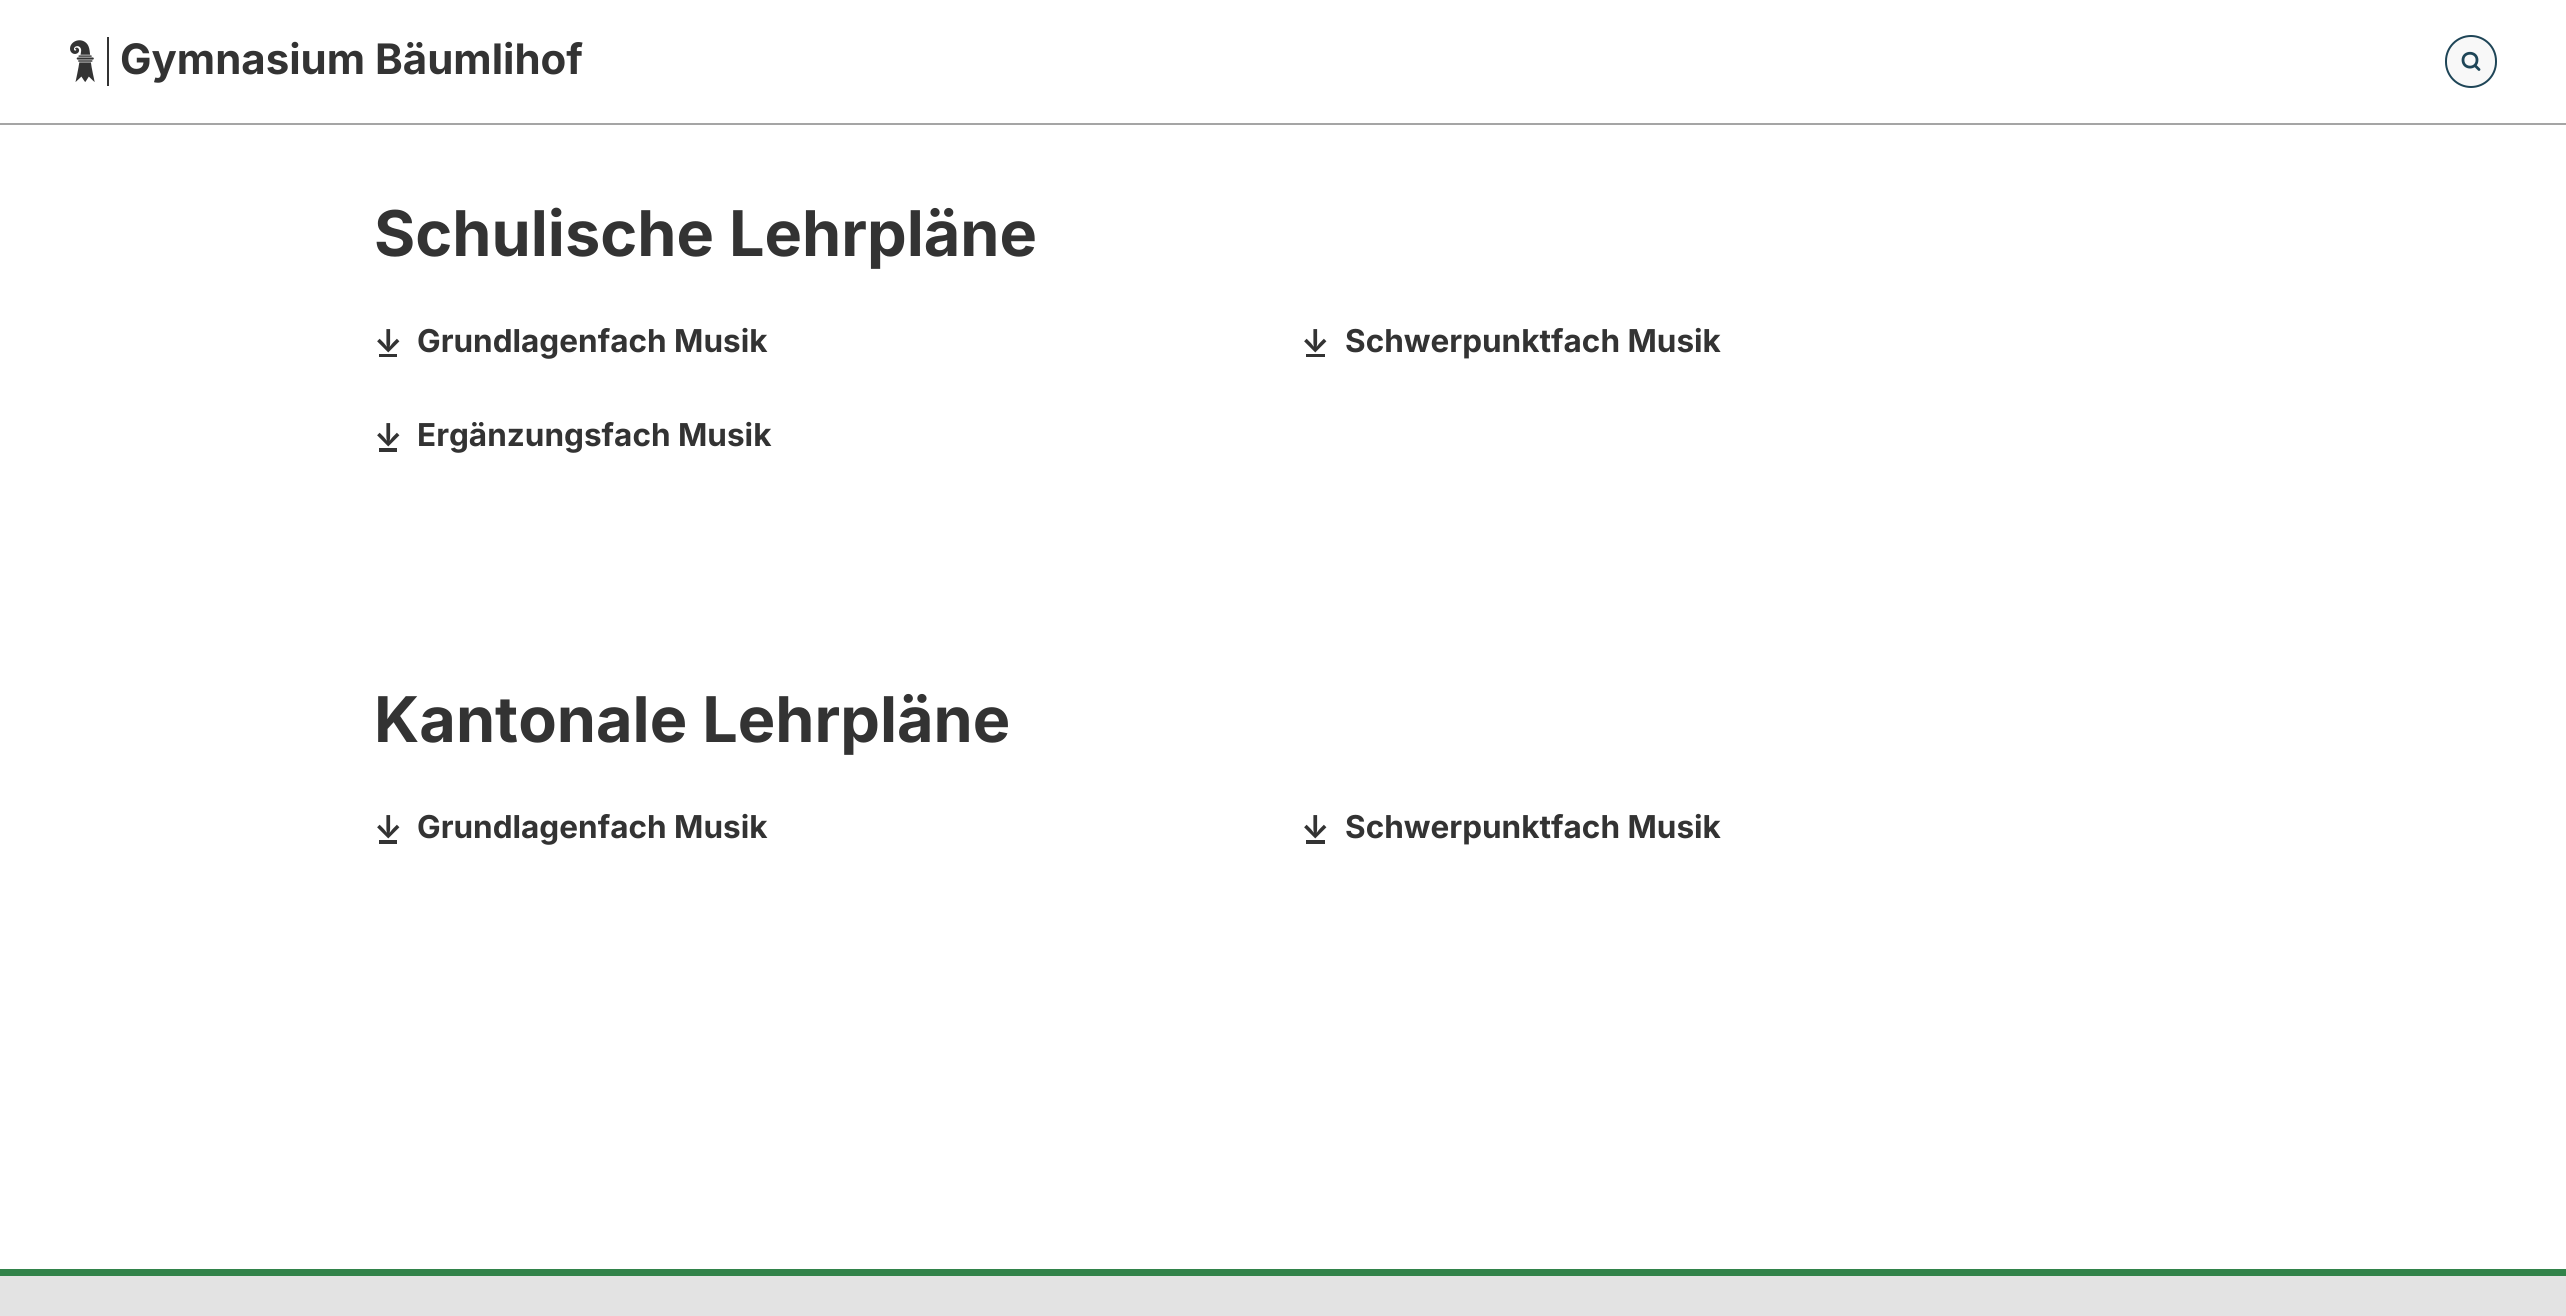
#include <cairo.h>
#include <math.h>
#include <stddef.h>

static cairo_t *ctx;

static void use_color(int r, int g, int b) {
    cairo_set_source_rgb(ctx, r / 255.0, g / 255.0, b / 255.0);
}

static void round_rect(double x, double y, double w, double h, double r) {
    cairo_new_sub_path(ctx);
    cairo_arc(ctx, x + w - r, y + h - r, r, 0, M_PI / 2);
    cairo_arc(ctx, x + r, y + h - r, r, M_PI / 2, M_PI);
    cairo_arc(ctx, x + r, y + r, r, M_PI, 1.5 * M_PI);
    cairo_arc(ctx, x + w - r, y + r, r, 1.5 * M_PI, 2 * M_PI);
    cairo_close_path(ctx);
}

static void picture(const char *path, double x, double y, double w, double h) {
    cairo_surface_t *image = cairo_image_surface_create_from_png(path);
    cairo_save(ctx);
    cairo_set_source_surface(ctx, image, x, y);
    cairo_rectangle(ctx, x, y, w, h);
    cairo_fill(ctx);
    cairo_restore(ctx);
    cairo_surface_destroy(image);
}

int main(void) {
    cairo_surface_t *surface = cairo_image_surface_create(CAIRO_FORMAT_RGB24, 2566, 1316);
    ctx = cairo_create(surface);
    cairo_font_options_t *options = cairo_font_options_create();
    cairo_font_options_set_hint_metrics(options, CAIRO_HINT_METRICS_OFF);
    cairo_font_options_set_hint_style(options, CAIRO_HINT_STYLE_NONE);
    cairo_set_font_options(ctx, options);
    cairo_set_miter_limit(ctx, 4);
    use_color(255, 255, 255);
    cairo_paint(ctx);
    use_color(165, 165, 165);
    cairo_rectangle(ctx, 0, 123, 2566, 2);
    cairo_fill(ctx);
    picture("img1.png", 70, 40, 25, 42);
    use_color(51, 51, 51);
    cairo_rectangle(ctx, 107, 37, 2, 49);
    cairo_fill(ctx);
    cairo_select_font_face(ctx, "Inter", CAIRO_FONT_SLANT_NORMAL, CAIRO_FONT_WEIGHT_BOLD);
    cairo_set_font_size(ctx, 42);
    cairo_move_to(ctx, 120, 74);
    cairo_show_text(ctx, "Gymnasium Bäumlihof");
    use_color(248, 248, 248);
    round_rect(2446, 36, 50, 51, 25);
    cairo_fill_preserve(ctx);
    use_color(30, 69, 87);
    cairo_stroke(ctx);
    cairo_new_path(ctx);
    cairo_move_to(ctx, 2475, 65.5);
    cairo_line_to(ctx, 2479, 69.5);
    cairo_move_to(ctx, 2463, 60);
    cairo_curve_to(ctx, 2463, 69.5, 2477, 69.5, 2477, 60);
    cairo_curve_to(ctx, 2477, 51, 2463, 51, 2463, 60);
    cairo_close_path(ctx);
    cairo_set_line_width(ctx, 2.8);
    cairo_set_line_cap(ctx, CAIRO_LINE_CAP_ROUND);
    cairo_set_line_join(ctx, CAIRO_LINE_JOIN_ROUND);
    cairo_stroke(ctx);
    cairo_set_font_size(ctx, 63);
    use_color(51, 51, 51);
    cairo_move_to(ctx, 374, 256);
    cairo_show_text(ctx, "Schulische Lehrpläne");
    cairo_set_font_size(ctx, 31.5);
    cairo_move_to(ctx, 374, 352);
    cairo_show_text(ctx, "↓");
    cairo_move_to(ctx, 417, 352);
    cairo_show_text(ctx, "Grundlagenfach Musik");
    cairo_rectangle(ctx, 379, 354, 18, 3);
    cairo_fill(ctx);
    cairo_move_to(ctx, 1301, 352);
    cairo_show_text(ctx, "↓");
    cairo_move_to(ctx, 1345, 352);
    cairo_show_text(ctx, "Schwerpunktfach Musik");
    cairo_rectangle(ctx, 1306, 354, 19, 3);
    cairo_fill(ctx);
    cairo_move_to(ctx, 374, 446);
    cairo_show_text(ctx, "↓");
    cairo_move_to(ctx, 417, 446);
    cairo_show_text(ctx, "Ergänzungsfach Musik");
    cairo_rectangle(ctx, 379, 448, 18, 4);
    cairo_fill(ctx);
    cairo_set_font_size(ctx, 63);
    cairo_move_to(ctx, 374, 742);
    cairo_show_text(ctx, "Kantonale Lehrpläne");
    cairo_set_font_size(ctx, 31.5);
    cairo_move_to(ctx, 374, 838);
    cairo_show_text(ctx, "↓");
    cairo_move_to(ctx, 417, 838);
    cairo_show_text(ctx, "Grundlagenfach Musik");
    cairo_rectangle(ctx, 379, 840, 18, 4);
    cairo_fill(ctx);
    cairo_move_to(ctx, 1301, 838);
    cairo_show_text(ctx, "↓");
    cairo_move_to(ctx, 1345, 838);
    cairo_show_text(ctx, "Schwerpunktfach Musik");
    cairo_rectangle(ctx, 1306, 840, 19, 4);
    cairo_fill(ctx);
    use_color(227, 227, 227);
    cairo_rectangle(ctx, 0, 1276, 2566, 40);
    cairo_fill(ctx);
    use_color(50, 131, 74);
    cairo_rectangle(ctx, 0, 1269, 2566, 7);
    cairo_fill(ctx);
    cairo_surface_write_to_png(surface, "result.png");
    cairo_font_options_destroy(options);
    cairo_destroy(ctx);
    cairo_surface_destroy(surface);
    return 0;
}
